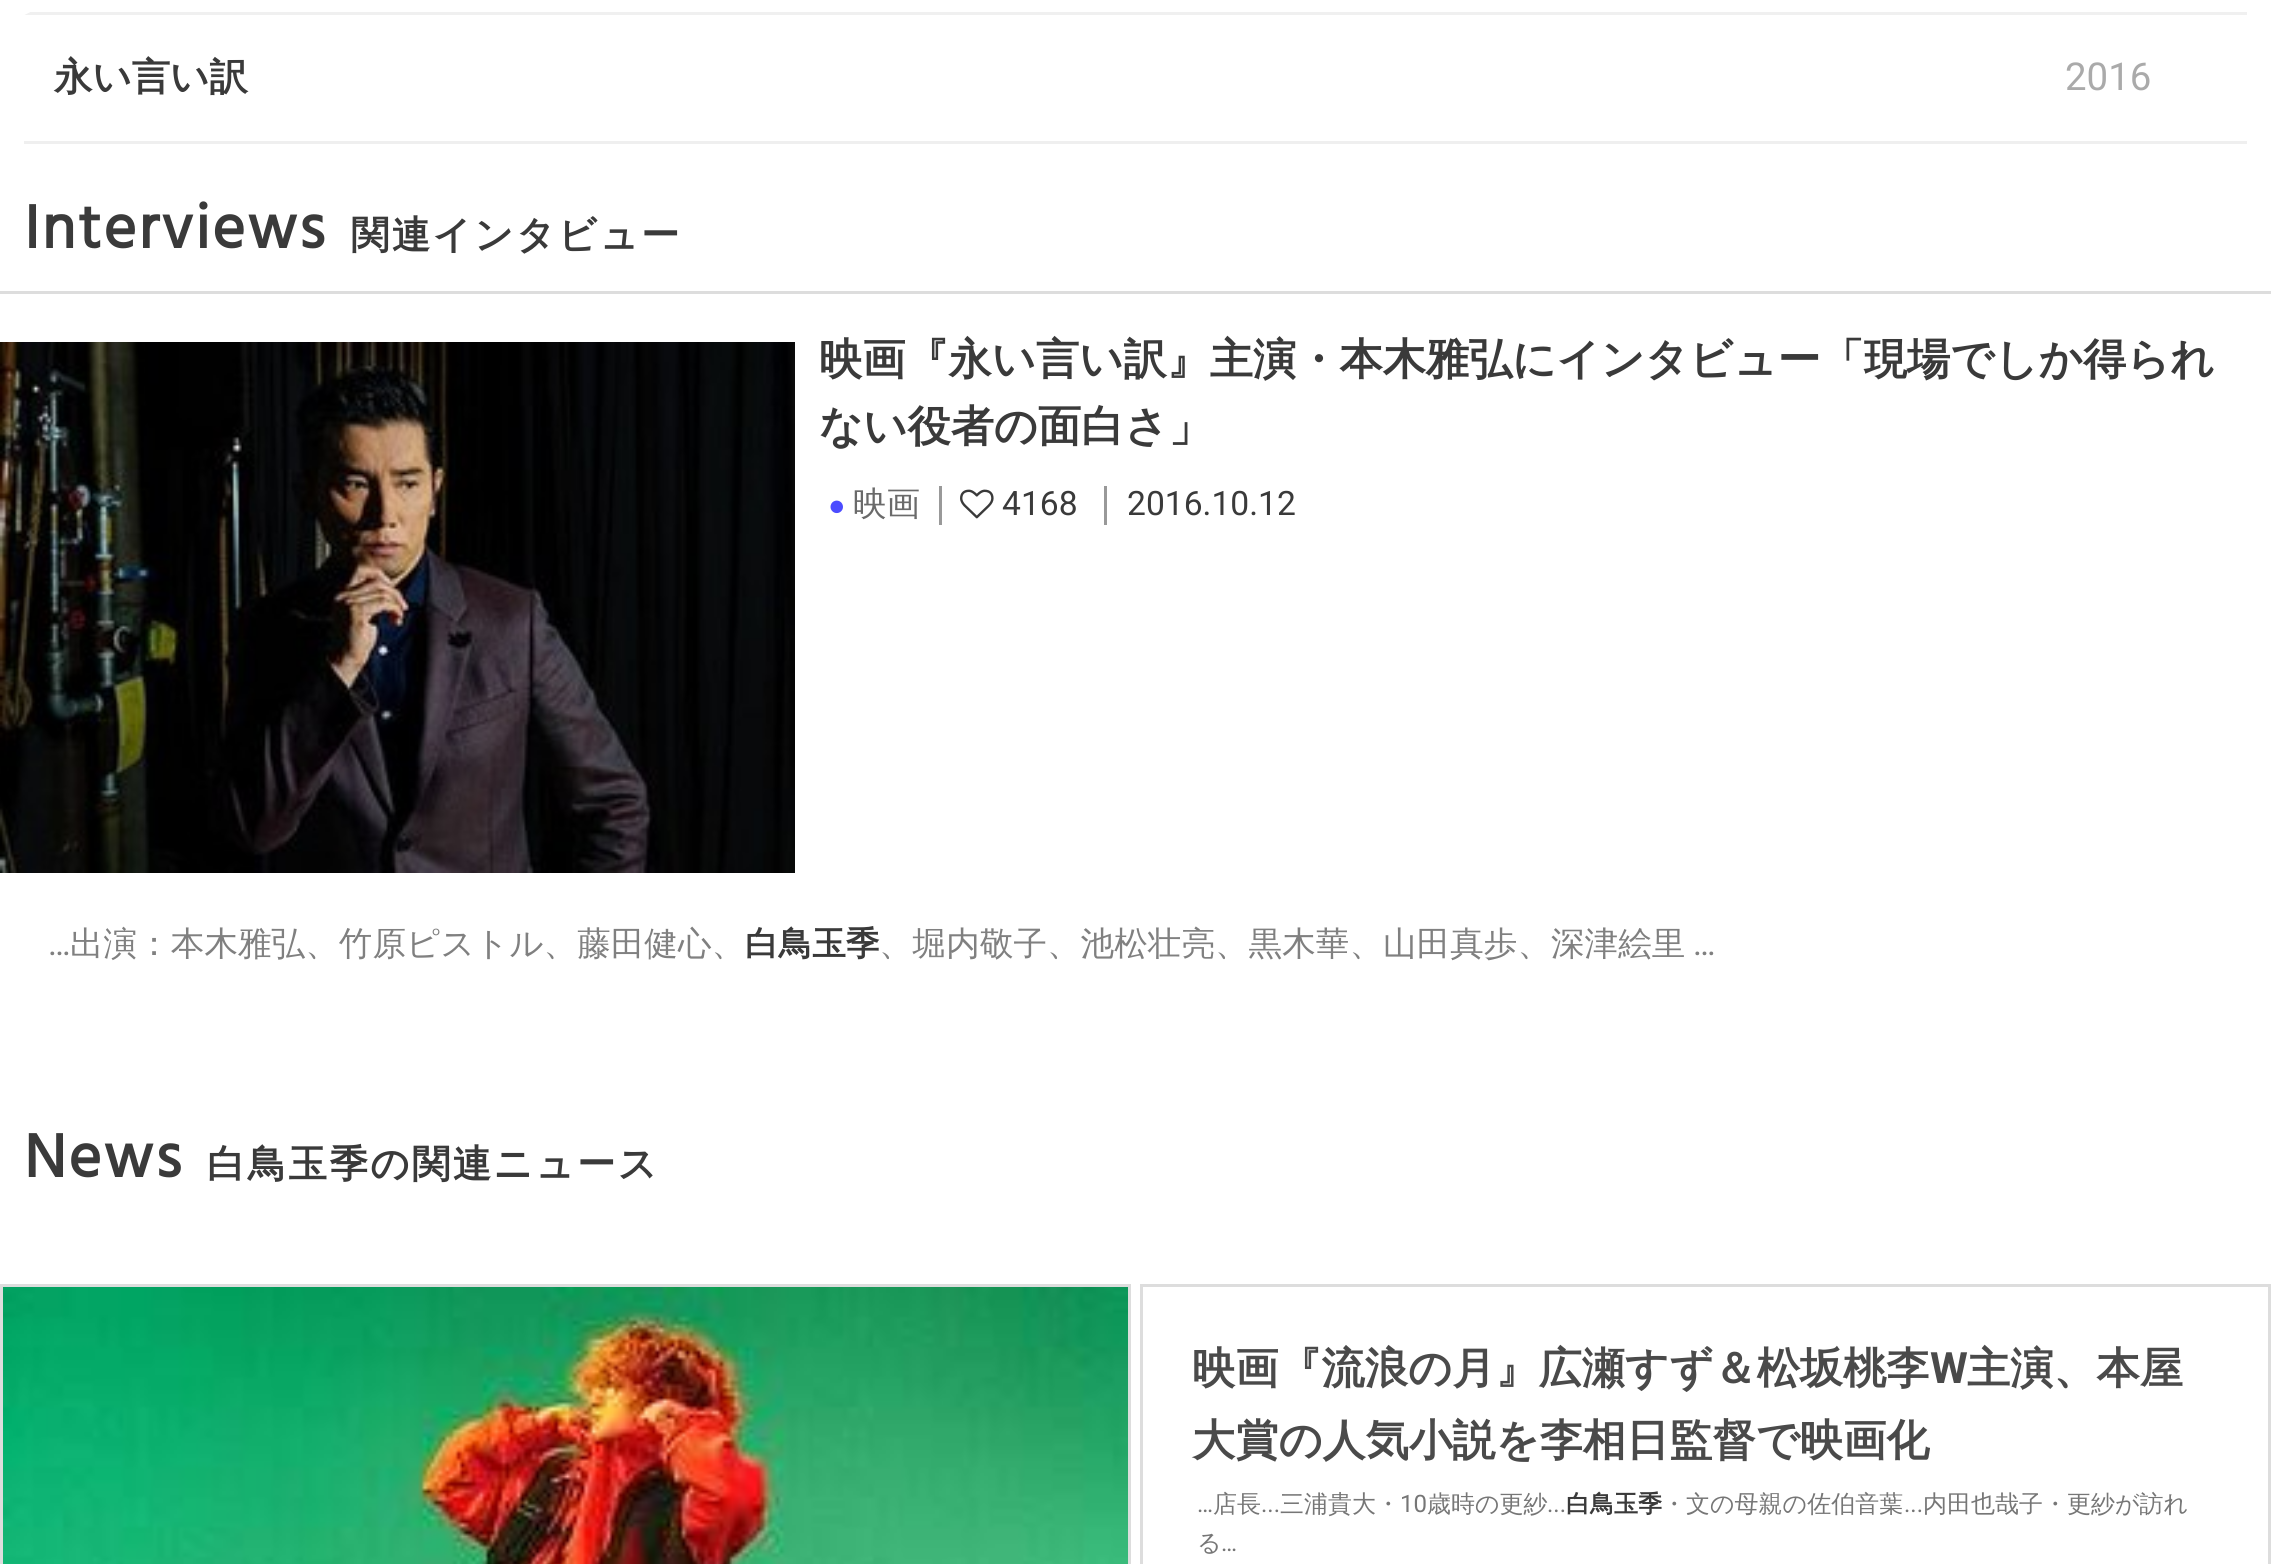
#include <cairo.h>
#include <math.h>
#include <stddef.h>

static cairo_t *ctx;

static void use_color(int r, int g, int b) {
    cairo_set_source_rgb(ctx, r / 255.0, g / 255.0, b / 255.0);
}

static void spaced_text(double x, double y, const char *s, double letter, double word) {
    cairo_move_to(ctx, x, y);
    while (*s) {
        char ch[5] = {0};
        int n = 0;
        do ch[n++] = *s++; while ((*s & 0xC0) == 0x80);
        cairo_show_text(ctx, ch);
        cairo_rel_move_to(ctx, letter + word * (*ch == ' '), 0);
    }
}

static void picture(const char *path, double x, double y, double w, double h) {
    cairo_surface_t *image = cairo_image_surface_create_from_png(path);
    cairo_save(ctx);
    cairo_set_source_surface(ctx, image, x, y);
    cairo_rectangle(ctx, x, y, w, h);
    cairo_fill(ctx);
    cairo_restore(ctx);
    cairo_surface_destroy(image);
}

int main(void) {
    cairo_surface_t *surface = cairo_image_surface_create(CAIRO_FORMAT_RGB24, 2271, 1564);
    ctx = cairo_create(surface);
    cairo_font_options_t *options = cairo_font_options_create();
    cairo_font_options_set_hint_metrics(options, CAIRO_HINT_METRICS_OFF);
    cairo_font_options_set_hint_style(options, CAIRO_HINT_STYLE_NONE);
    cairo_set_font_options(ctx, options);
    cairo_set_miter_limit(ctx, 4);
    use_color(255, 255, 255);
    cairo_paint(ctx);
    use_color(239, 239, 239);
    cairo_rectangle(ctx, 24, 141, 2223, 3);
    cairo_fill(ctx);
    use_color(240, 240, 240);
    cairo_new_path(ctx);
    cairo_move_to(ctx, 2247, 15);
    cairo_line_to(ctx, 24, 15);
    cairo_line_to(ctx, 30, 12);
    cairo_line_to(ctx, 2247, 12);
    cairo_close_path(ctx);
    cairo_fill(ctx);
    use_color(255, 255, 255);
    cairo_new_path(ctx);
    cairo_move_to(ctx, 24, 15);
    cairo_line_to(ctx, 24, -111);
    cairo_line_to(ctx, 30, -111);
    cairo_line_to(ctx, 30, 12);
    cairo_close_path(ctx);
    cairo_fill(ctx);
    cairo_select_font_face(ctx, "WenQuanYi Zen Hei", CAIRO_FONT_SLANT_NORMAL, CAIRO_FONT_WEIGHT_BOLD);
    cairo_set_font_size(ctx, 38.4);
    use_color(58, 58, 58);
    cairo_move_to(ctx, 54, 90);
    cairo_show_text(ctx, "永い言い訳");
    cairo_select_font_face(ctx, "Roboto", CAIRO_FONT_SLANT_NORMAL, CAIRO_FONT_WEIGHT_NORMAL);
    use_color(170, 170, 170);
    cairo_move_to(ctx, 2065, 90);
    cairo_show_text(ctx, "2016");
    cairo_select_font_face(ctx, "Hind", CAIRO_FONT_SLANT_NORMAL, CAIRO_FONT_WEIGHT_BOLD);
    cairo_set_font_size(ctx, 62.5);
    use_color(58, 58, 58);
    spaced_text(24, 248, "Interviews", 2.4, 0);
    cairo_select_font_face(ctx, "WenQuanYi Zen Hei", CAIRO_FONT_SLANT_NORMAL, CAIRO_FONT_WEIGHT_BOLD);
    cairo_set_font_size(ctx, 38.4);
    spaced_text(351, 248, "関連インタビュー", 2.4, 0);
    use_color(221, 221, 221);
    cairo_rectangle(ctx, 0, 291, 2271, 3);
    cairo_fill(ctx);
    picture("img1.png", 0, 342, 795, 531);
    cairo_set_font_size(ctx, 43.2);
    use_color(58, 58, 58);
    cairo_move_to(ctx, 819, 374);
    cairo_show_text(ctx, "映画『永い言い訳』主演・本木雅弘にインタビュー「現場でしか得られ");
    cairo_move_to(ctx, 819, 441);
    cairo_show_text(ctx, "ない役者の面白さ」");
    cairo_select_font_face(ctx, "Liberation Sans", CAIRO_FONT_SLANT_NORMAL, CAIRO_FONT_WEIGHT_NORMAL);
    cairo_set_font_size(ctx, 29);
    use_color(76, 76, 255);
    cairo_move_to(ctx, 828, 515);
    cairo_show_text(ctx, "●");
    cairo_select_font_face(ctx, "WenQuanYi Zen Hei Medium", CAIRO_FONT_SLANT_NORMAL, CAIRO_FONT_WEIGHT_NORMAL);
    cairo_set_font_size(ctx, 33.6);
    use_color(106, 106, 106);
    cairo_move_to(ctx, 853, 515);
    cairo_show_text(ctx, "映画");
    use_color(153, 153, 153);
    cairo_rectangle(ctx, 939, 486, 3, 39);
    cairo_fill(ctx);
    picture("img2.png", 960, 489, 34, 30);
    cairo_select_font_face(ctx, "Roboto", CAIRO_FONT_SLANT_NORMAL, CAIRO_FONT_WEIGHT_NORMAL);
    use_color(58, 58, 58);
    cairo_move_to(ctx, 1002, 515);
    cairo_show_text(ctx, "4168");
    use_color(153, 153, 153);
    cairo_rectangle(ctx, 1104, 486, 3, 39);
    cairo_fill(ctx);
    use_color(58, 58, 58);
    cairo_move_to(ctx, 1127, 515);
    cairo_show_text(ctx, "2016.10.12");
    use_color(128, 128, 128);
    cairo_move_to(ctx, 48, 955);
    cairo_show_text(ctx, "…");
    cairo_select_font_face(ctx, "WenQuanYi Zen Hei Medium", CAIRO_FONT_SLANT_NORMAL, CAIRO_FONT_WEIGHT_NORMAL);
    cairo_move_to(ctx, 70, 955);
    cairo_show_text(ctx, "出演：本木雅弘、竹原ピストル、藤田健心、");
    cairo_select_font_face(ctx, "WenQuanYi Zen Hei", CAIRO_FONT_SLANT_NORMAL, CAIRO_FONT_WEIGHT_BOLD);
    use_color(58, 58, 58);
    cairo_move_to(ctx, 745, 955);
    cairo_show_text(ctx, "白鳥玉季");
    cairo_select_font_face(ctx, "WenQuanYi Zen Hei Medium", CAIRO_FONT_SLANT_NORMAL, CAIRO_FONT_WEIGHT_NORMAL);
    use_color(128, 128, 128);
    cairo_move_to(ctx, 879, 955);
    cairo_show_text(ctx, "、堀内敬子、池松壮亮、黒木華、山田真歩、深津絵里");
    cairo_select_font_face(ctx, "Roboto", CAIRO_FONT_SLANT_NORMAL, CAIRO_FONT_WEIGHT_NORMAL);
    cairo_move_to(ctx, 1693, 955);
    cairo_show_text(ctx, "…");
    cairo_select_font_face(ctx, "Hind", CAIRO_FONT_SLANT_NORMAL, CAIRO_FONT_WEIGHT_BOLD);
    cairo_set_font_size(ctx, 62.5);
    use_color(58, 58, 58);
    spaced_text(24, 1177, "News", 2.4, 0);
    cairo_select_font_face(ctx, "WenQuanYi Zen Hei", CAIRO_FONT_SLANT_NORMAL, CAIRO_FONT_WEIGHT_BOLD);
    cairo_set_font_size(ctx, 38.4);
    spaced_text(207, 1177, "白鳥玉季の関連ニュース", 2.4, 0);
    cairo_rectangle(ctx, 1.5, 1285.5, 1128, 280);
    use_color(221, 221, 221);
    cairo_set_line_width(ctx, 3);
    cairo_stroke(ctx);
    picture("img3.png", 3, 1287, 1125, 277);
    cairo_rectangle(ctx, 1141.5, 1285.5, 1128, 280);
    cairo_stroke(ctx);
    cairo_set_font_size(ctx, 43.2);
    use_color(74, 74, 74);
    cairo_move_to(ctx, 1192, 1383);
    cairo_show_text(ctx, "映画『流浪の月』広瀬すず＆松坂桃李");
    cairo_select_font_face(ctx, "Roboto", CAIRO_FONT_SLANT_NORMAL, CAIRO_FONT_WEIGHT_BOLD);
    cairo_move_to(ctx, 1930, 1383);
    cairo_show_text(ctx, "W");
    cairo_select_font_face(ctx, "WenQuanYi Zen Hei", CAIRO_FONT_SLANT_NORMAL, CAIRO_FONT_WEIGHT_BOLD);
    cairo_move_to(ctx, 1967, 1383);
    cairo_show_text(ctx, "主演、本屋");
    cairo_move_to(ctx, 1192, 1455);
    cairo_show_text(ctx, "大賞の人気小説を李相日監督で映画化");
    cairo_select_font_face(ctx, "Roboto", CAIRO_FONT_SLANT_NORMAL, CAIRO_FONT_WEIGHT_NORMAL);
    cairo_set_font_size(ctx, 24);
    use_color(118, 118, 118);
    cairo_move_to(ctx, 1197, 1512);
    cairo_show_text(ctx, "…");
    cairo_select_font_face(ctx, "WenQuanYi Zen Hei Medium", CAIRO_FONT_SLANT_NORMAL, CAIRO_FONT_WEIGHT_NORMAL);
    cairo_move_to(ctx, 1213, 1512);
    cairo_show_text(ctx, "店長");
    cairo_select_font_face(ctx, "Roboto", CAIRO_FONT_SLANT_NORMAL, CAIRO_FONT_WEIGHT_NORMAL);
    cairo_move_to(ctx, 1261, 1512);
    cairo_show_text(ctx, "...");
    cairo_select_font_face(ctx, "WenQuanYi Zen Hei Medium", CAIRO_FONT_SLANT_NORMAL, CAIRO_FONT_WEIGHT_NORMAL);
    cairo_move_to(ctx, 1280, 1512);
    cairo_show_text(ctx, "三浦貴大・");
    cairo_select_font_face(ctx, "Roboto", CAIRO_FONT_SLANT_NORMAL, CAIRO_FONT_WEIGHT_NORMAL);
    cairo_move_to(ctx, 1400, 1512);
    cairo_show_text(ctx, "10");
    cairo_select_font_face(ctx, "WenQuanYi Zen Hei Medium", CAIRO_FONT_SLANT_NORMAL, CAIRO_FONT_WEIGHT_NORMAL);
    cairo_move_to(ctx, 1427, 1512);
    cairo_show_text(ctx, "歳時の更紗");
    cairo_select_font_face(ctx, "Roboto", CAIRO_FONT_SLANT_NORMAL, CAIRO_FONT_WEIGHT_NORMAL);
    cairo_move_to(ctx, 1547, 1512);
    cairo_show_text(ctx, "...");
    cairo_select_font_face(ctx, "WenQuanYi Zen Hei", CAIRO_FONT_SLANT_NORMAL, CAIRO_FONT_WEIGHT_BOLD);
    use_color(58, 58, 58);
    cairo_move_to(ctx, 1566, 1512);
    cairo_show_text(ctx, "白鳥玉季");
    cairo_select_font_face(ctx, "WenQuanYi Zen Hei Medium", CAIRO_FONT_SLANT_NORMAL, CAIRO_FONT_WEIGHT_NORMAL);
    use_color(118, 118, 118);
    cairo_move_to(ctx, 1662, 1512);
    cairo_show_text(ctx, "・文の母親の佐伯音葉");
    cairo_select_font_face(ctx, "Roboto", CAIRO_FONT_SLANT_NORMAL, CAIRO_FONT_WEIGHT_NORMAL);
    cairo_move_to(ctx, 1904, 1512);
    cairo_show_text(ctx, "...");
    cairo_select_font_face(ctx, "WenQuanYi Zen Hei Medium", CAIRO_FONT_SLANT_NORMAL, CAIRO_FONT_WEIGHT_NORMAL);
    cairo_move_to(ctx, 1923, 1512);
    cairo_show_text(ctx, "内田也哉子・更紗が訪れ");
    cairo_move_to(ctx, 1197, 1551);
    cairo_show_text(ctx, "る");
    cairo_select_font_face(ctx, "Roboto", CAIRO_FONT_SLANT_NORMAL, CAIRO_FONT_WEIGHT_NORMAL);
    cairo_move_to(ctx, 1221, 1551);
    cairo_show_text(ctx, "…");
    cairo_surface_write_to_png(surface, "result.png");
    cairo_font_options_destroy(options);
    cairo_destroy(ctx);
    cairo_surface_destroy(surface);
    return 0;
}
